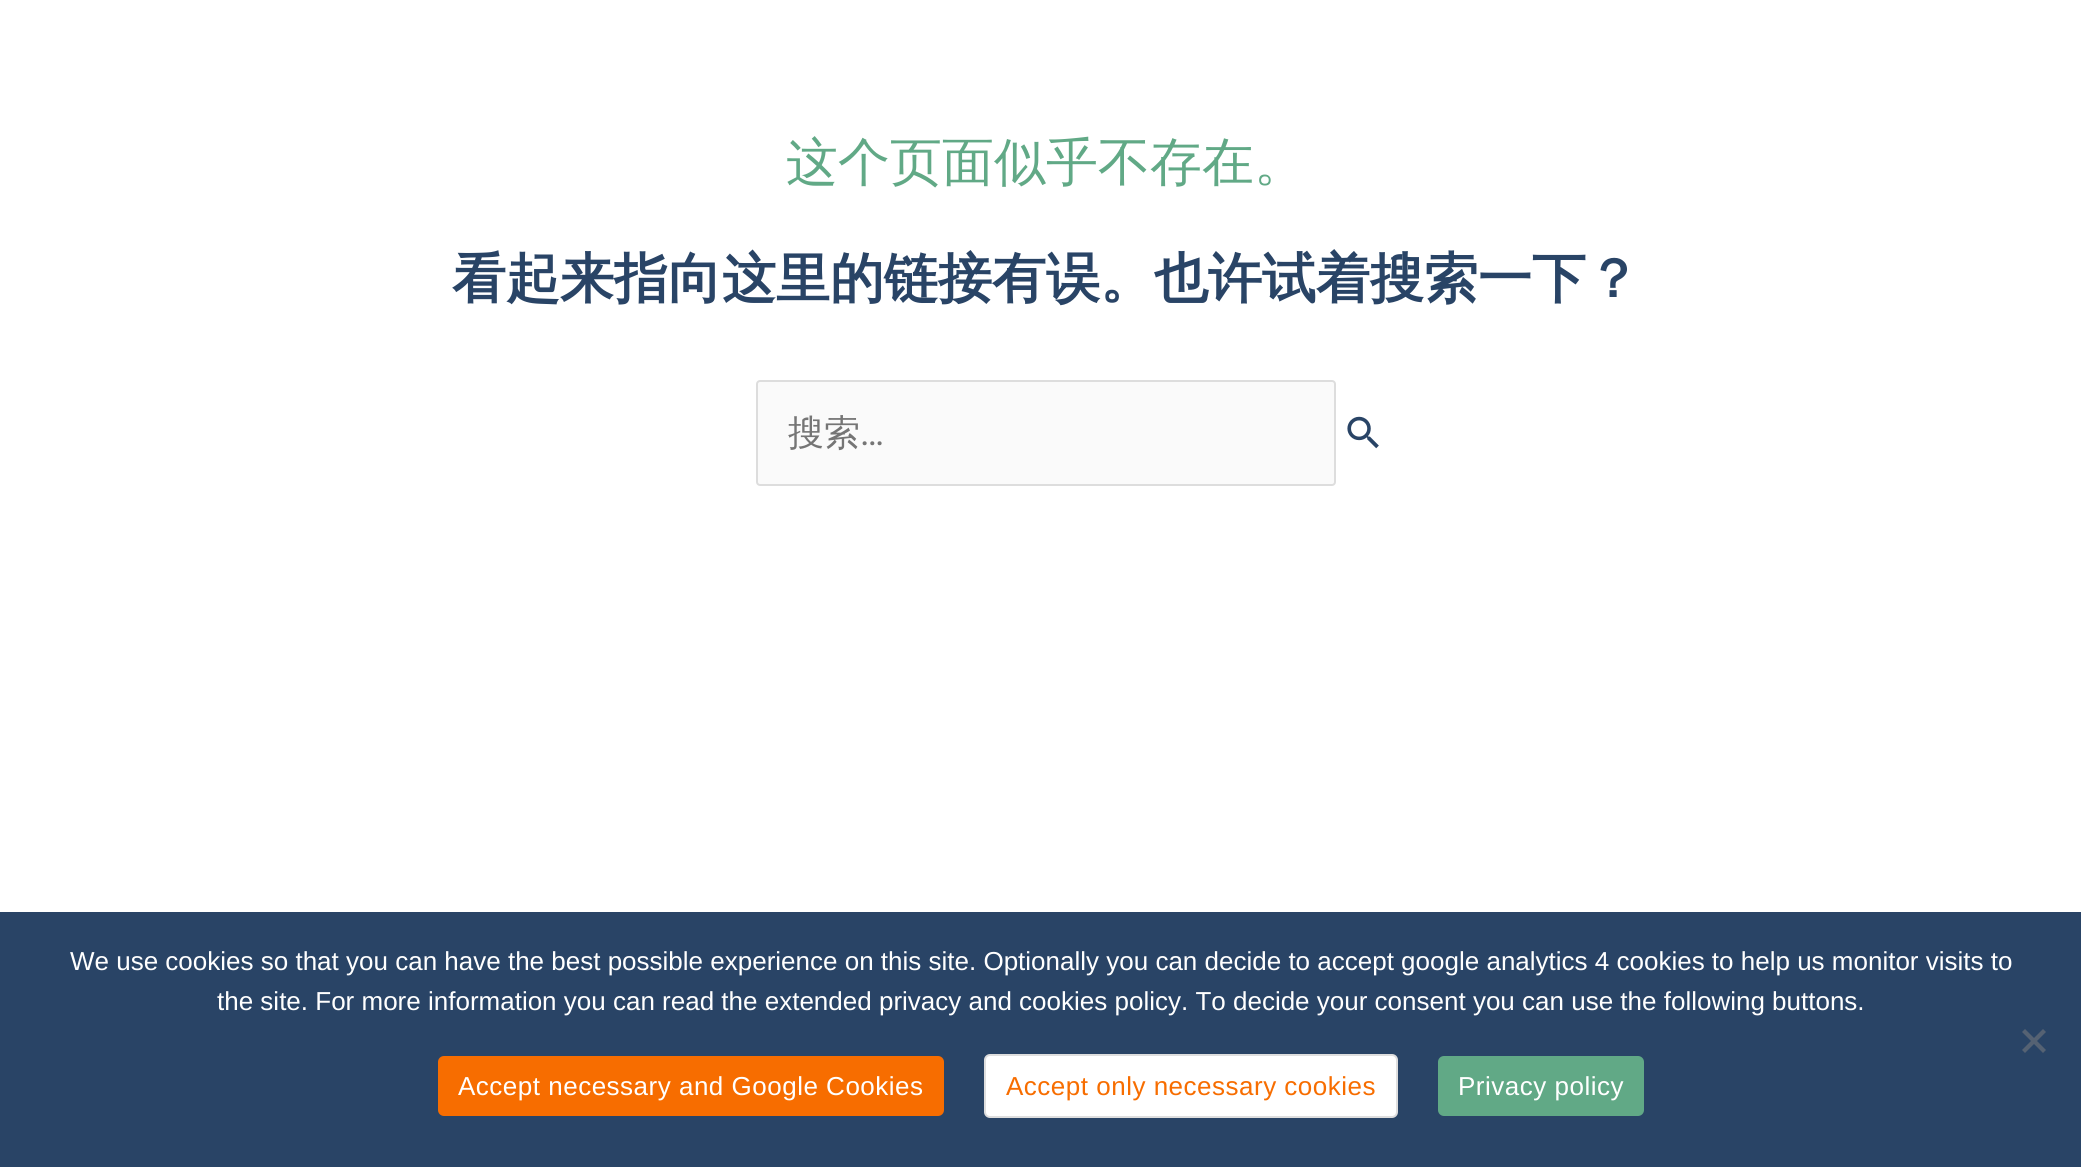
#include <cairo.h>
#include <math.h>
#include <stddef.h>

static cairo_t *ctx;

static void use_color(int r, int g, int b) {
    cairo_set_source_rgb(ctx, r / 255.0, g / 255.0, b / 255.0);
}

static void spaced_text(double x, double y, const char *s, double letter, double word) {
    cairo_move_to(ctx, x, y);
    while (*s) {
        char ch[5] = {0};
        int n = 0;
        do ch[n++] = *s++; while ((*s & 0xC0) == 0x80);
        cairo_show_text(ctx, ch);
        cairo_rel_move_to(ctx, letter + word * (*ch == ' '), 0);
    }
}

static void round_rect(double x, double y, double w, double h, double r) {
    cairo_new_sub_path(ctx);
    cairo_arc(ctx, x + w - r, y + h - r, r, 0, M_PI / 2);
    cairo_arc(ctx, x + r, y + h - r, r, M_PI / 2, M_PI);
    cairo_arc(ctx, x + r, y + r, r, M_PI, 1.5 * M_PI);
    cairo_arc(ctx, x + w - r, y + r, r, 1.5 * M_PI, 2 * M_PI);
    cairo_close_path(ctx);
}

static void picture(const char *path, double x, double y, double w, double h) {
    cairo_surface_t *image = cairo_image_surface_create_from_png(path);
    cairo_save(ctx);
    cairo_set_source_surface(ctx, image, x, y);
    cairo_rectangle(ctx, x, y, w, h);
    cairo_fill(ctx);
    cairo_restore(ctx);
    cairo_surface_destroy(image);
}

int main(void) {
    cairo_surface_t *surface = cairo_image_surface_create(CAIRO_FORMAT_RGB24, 2081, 1167);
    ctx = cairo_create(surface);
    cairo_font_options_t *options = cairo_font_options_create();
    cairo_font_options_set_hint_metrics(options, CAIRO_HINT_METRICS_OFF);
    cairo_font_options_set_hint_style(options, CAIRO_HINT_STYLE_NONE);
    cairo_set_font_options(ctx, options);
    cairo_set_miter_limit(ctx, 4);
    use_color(255, 255, 255);
    cairo_paint(ctx);
    cairo_select_font_face(ctx, "WenQuanYi Zen Hei Medium", CAIRO_FONT_SLANT_NORMAL, CAIRO_FONT_WEIGHT_NORMAL);
    cairo_set_font_size(ctx, 52);
    use_color(97, 169, 134);
    cairo_move_to(ctx, 786, 180);
    cairo_show_text(ctx, "这个页面似乎不存在。");
    cairo_select_font_face(ctx, "WenQuanYi Zen Hei", CAIRO_FONT_SLANT_NORMAL, CAIRO_FONT_WEIGHT_BOLD);
    cairo_set_font_size(ctx, 54);
    use_color(41, 68, 102);
    cairo_move_to(ctx, 452, 297);
    cairo_show_text(ctx, "看起来指向这里的链接有误。也许试着搜索一下？");
    use_color(250, 250, 250);
    round_rect(757, 381, 578, 104, 3);
    cairo_fill_preserve(ctx);
    use_color(221, 221, 221);
    cairo_stroke(ctx);
    cairo_select_font_face(ctx, "WenQuanYi Zen Hei Medium", CAIRO_FONT_SLANT_NORMAL, CAIRO_FONT_WEIGHT_NORMAL);
    cairo_set_font_size(ctx, 36);
    use_color(117, 117, 117);
    cairo_move_to(ctx, 788, 445);
    cairo_show_text(ctx, "搜索");
    cairo_select_font_face(ctx, "Roboto", CAIRO_FONT_SLANT_NORMAL, CAIRO_FONT_WEIGHT_NORMAL);
    cairo_move_to(ctx, 860, 445);
    cairo_show_text(ctx, "…");
    picture("img1.png", 1347, 416, 32, 33);
    use_color(41, 68, 102);
    cairo_rectangle(ctx, 0, 912, 2081, 255);
    cairo_fill(ctx);
    cairo_select_font_face(ctx, "Liberation Sans", CAIRO_FONT_SLANT_NORMAL, CAIRO_FONT_WEIGHT_NORMAL);
    cairo_set_font_size(ctx, 26);
    use_color(255, 255, 255);
    cairo_move_to(ctx, 70, 970);
    cairo_show_text(ctx, "We use cookies so that you can have the best possible experience on this site. Optionally you can decide to accept google analytics 4 cookies to help us monitor visits to");
    cairo_move_to(ctx, 217, 1010);
    cairo_show_text(ctx, "the site. For more information you can read the extended privacy and cookies policy. To decide your consent you can use the following buttons.");
    use_color(85, 98, 115);
    cairo_new_path(ctx);
    cairo_move_to(ctx, 2043, 1029);
    cairo_line_to(ctx, 2046, 1032);
    cairo_line_to(ctx, 2025, 1053);
    cairo_line_to(ctx, 2022, 1050);
    cairo_close_path(ctx);
    cairo_fill(ctx);
    cairo_new_path(ctx);
    cairo_move_to(ctx, 2022, 1032);
    cairo_line_to(ctx, 2025, 1029);
    cairo_line_to(ctx, 2046, 1050);
    cairo_line_to(ctx, 2043, 1053);
    cairo_close_path(ctx);
    cairo_fill(ctx);
    use_color(247, 109, 0);
    round_rect(438, 1056, 506, 60, 6);
    cairo_fill(ctx);
    use_color(255, 255, 255);
    spaced_text(458, 1095, "Accept necessary and Google Cookies", 0.5, 0);
    round_rect(985, 1055, 412, 62, 5);
    cairo_fill_preserve(ctx);
    use_color(222, 222, 222);
    cairo_stroke(ctx);
    use_color(247, 109, 0);
    spaced_text(1006, 1095, "Accept only necessary cookies", 0.5, 0);
    use_color(97, 169, 134);
    round_rect(1438, 1056, 206, 60, 6);
    cairo_fill(ctx);
    use_color(255, 255, 255);
    spaced_text(1458, 1095, "Privacy policy", 0.5, 0);
    cairo_surface_write_to_png(surface, "result.png");
    cairo_font_options_destroy(options);
    cairo_destroy(ctx);
    cairo_surface_destroy(surface);
    return 0;
}
